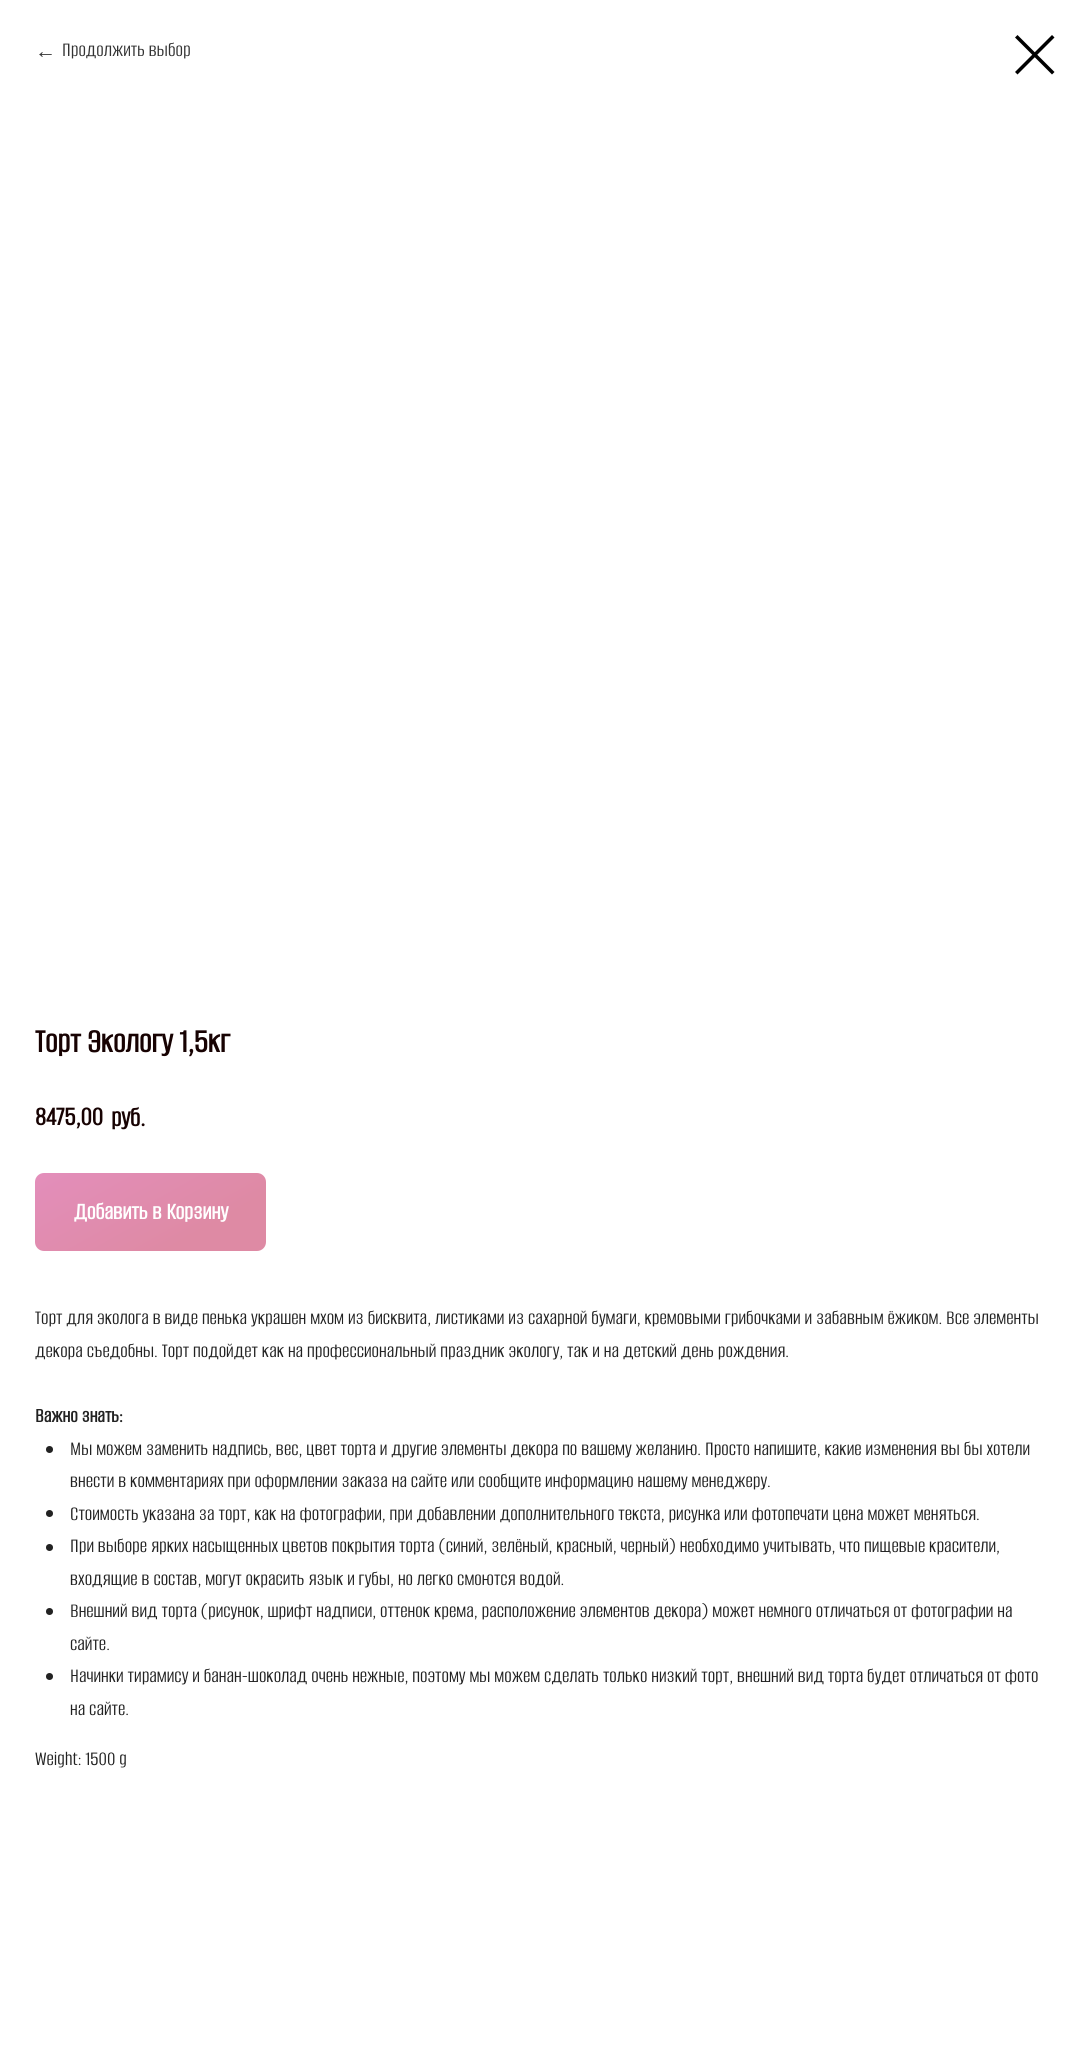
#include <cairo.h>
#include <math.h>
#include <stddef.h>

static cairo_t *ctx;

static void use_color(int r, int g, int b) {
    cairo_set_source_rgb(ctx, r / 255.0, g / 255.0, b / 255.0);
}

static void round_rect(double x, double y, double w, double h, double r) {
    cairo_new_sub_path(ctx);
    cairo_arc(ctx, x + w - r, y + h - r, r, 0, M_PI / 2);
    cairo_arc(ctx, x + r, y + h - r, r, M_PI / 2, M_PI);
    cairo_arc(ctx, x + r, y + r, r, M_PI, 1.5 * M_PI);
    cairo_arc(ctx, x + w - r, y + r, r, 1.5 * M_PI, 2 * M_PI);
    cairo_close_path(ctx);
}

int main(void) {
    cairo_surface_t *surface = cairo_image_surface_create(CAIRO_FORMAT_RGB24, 1090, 2062);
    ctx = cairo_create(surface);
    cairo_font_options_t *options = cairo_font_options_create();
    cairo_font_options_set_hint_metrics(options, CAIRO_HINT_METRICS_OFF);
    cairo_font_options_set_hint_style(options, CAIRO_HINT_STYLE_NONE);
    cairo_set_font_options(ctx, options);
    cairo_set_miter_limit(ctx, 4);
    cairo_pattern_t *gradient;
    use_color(255, 255, 255);
    cairo_paint(ctx);
    cairo_select_font_face(ctx, "Liberation Sans", CAIRO_FONT_SLANT_NORMAL, CAIRO_FONT_WEIGHT_NORMAL);
    cairo_set_font_size(ctx, 21);
    use_color(51, 51, 51);
    cairo_move_to(ctx, 35, 58);
    cairo_show_text(ctx, "←");
    cairo_select_font_face(ctx, "Alumni Sans SC", CAIRO_FONT_SLANT_NORMAL, CAIRO_FONT_WEIGHT_NORMAL);
    cairo_move_to(ctx, 62, 56);
    cairo_show_text(ctx, "Продолжить выбор");
    use_color(0, 0, 0);
    cairo_set_fill_rule(ctx, CAIRO_FILL_RULE_EVEN_ODD);
    cairo_new_path(ctx);
    cairo_move_to(ctx, 1015, 37.5);
    cairo_line_to(ctx, 1017.5, 35);
    cairo_line_to(ctx, 1054.5, 72);
    cairo_line_to(ctx, 1052, 74.5);
    cairo_close_path(ctx);
    cairo_fill(ctx);
    cairo_new_path(ctx);
    cairo_move_to(ctx, 1052, 35);
    cairo_line_to(ctx, 1054.5, 37.5);
    cairo_line_to(ctx, 1017.5, 74.5);
    cairo_line_to(ctx, 1015, 72);
    cairo_close_path(ctx);
    cairo_fill(ctx);
    cairo_select_font_face(ctx, "Alumni Sans SC", CAIRO_FONT_SLANT_NORMAL, CAIRO_FONT_WEIGHT_BOLD);
    cairo_set_font_size(ctx, 35);
    use_color(23, 2, 2);
    cairo_move_to(ctx, 35, 1052);
    cairo_show_text(ctx, "Торт Экологу 1,5кг");
    cairo_set_font_size(ctx, 28);
    cairo_move_to(ctx, 35, 1125);
    cairo_show_text(ctx, "8475,00");
    cairo_move_to(ctx, 111, 1126);
    cairo_show_text(ctx, "руб.");
    gradient = cairo_pattern_create_linear(106, 1133, 195, 1291);
    cairo_pattern_add_color_stop_rgba(gradient, 0, 0.89, 0.557, 0.733, 1);
    cairo_pattern_add_color_stop_rgba(gradient, 0.73, 0.871, 0.541, 0.643, 1);
    cairo_set_source(ctx, gradient);
    cairo_pattern_destroy(gradient);
    round_rect(35, 1173, 231, 78, 9);
    cairo_fill(ctx);
    cairo_set_font_size(ctx, 24.5);
    use_color(255, 255, 255);
    cairo_move_to(ctx, 74, 1219);
    cairo_show_text(ctx, "Добавить в Корзину");
    cairo_select_font_face(ctx, "Alumni Sans SC", CAIRO_FONT_SLANT_NORMAL, CAIRO_FONT_WEIGHT_NORMAL);
    cairo_set_font_size(ctx, 21);
    use_color(34, 34, 34);
    cairo_move_to(ctx, 35, 1324);
    cairo_show_text(ctx, "Торт для эколога в виде пенька украшен мхом из бисквита, листиками из сахарной бумаги, кремовыми грибочками и забавным ёжиком. Все элементы");
    cairo_move_to(ctx, 35, 1357);
    cairo_show_text(ctx, "декора съедобны. Торт подойдет как на профессиональный праздник экологу, так и на детский день рождения.");
    cairo_select_font_face(ctx, "Alumni Sans SC", CAIRO_FONT_SLANT_NORMAL, CAIRO_FONT_WEIGHT_BOLD);
    cairo_move_to(ctx, 35, 1422);
    cairo_show_text(ctx, "Важно знать:");
    cairo_new_path(ctx);
    cairo_arc(ctx, 49.5, 1449.5, 3.5, 0, 2 * M_PI);
    cairo_fill(ctx);
    cairo_select_font_face(ctx, "Alumni Sans SC", CAIRO_FONT_SLANT_NORMAL, CAIRO_FONT_WEIGHT_NORMAL);
    cairo_move_to(ctx, 70, 1455);
    cairo_show_text(ctx, "Мы можем заменить надпись, вес, цвет торта и другие элементы декора по вашему желанию. Просто напишите, какие изменения вы бы хотели");
    cairo_move_to(ctx, 70, 1487);
    cairo_show_text(ctx, "внести в комментариях при оформлении заказа на сайте или сообщите информацию нашему менеджеру.");
    cairo_new_path(ctx);
    cairo_arc(ctx, 49.5, 1513.5, 3.5, 0, 2 * M_PI);
    cairo_fill(ctx);
    cairo_move_to(ctx, 70, 1520);
    cairo_show_text(ctx, "Стоимость указана за торт, как на фотографии, при добавлении дополнительного текста, рисунка или фотопечати цена может меняться.");
    cairo_new_path(ctx);
    cairo_arc(ctx, 49.5, 1547.5, 3.5, 0, 2 * M_PI);
    cairo_fill(ctx);
    cairo_move_to(ctx, 70, 1552);
    cairo_show_text(ctx, "При выборе ярких насыщенных цветов покрытия торта (синий, зелёный, красный, черный) необходимо учитывать, что пищевые красители,");
    cairo_move_to(ctx, 70, 1585);
    cairo_show_text(ctx, "входящие в состав, могут окрасить язык и губы, но легко смоются водой.");
    cairo_new_path(ctx);
    cairo_arc(ctx, 49.5, 1611.5, 3.5, 0, 2 * M_PI);
    cairo_fill(ctx);
    cairo_move_to(ctx, 70, 1617);
    cairo_show_text(ctx, "Внешний вид торта (рисунок, шрифт надписи, оттенок крема, расположение элементов декора) может немного отличаться от фотографии на");
    cairo_move_to(ctx, 70, 1650);
    cairo_show_text(ctx, "сайте.");
    cairo_new_path(ctx);
    cairo_arc(ctx, 49.5, 1676.5, 3.5, 0, 2 * M_PI);
    cairo_fill(ctx);
    cairo_move_to(ctx, 70, 1682);
    cairo_show_text(ctx, "Начинки тирамису и банан-шоколад очень нежные, поэтому мы можем сделать только низкий торт, внешний вид торта будет отличаться от фото");
    cairo_move_to(ctx, 70, 1715);
    cairo_show_text(ctx, "на сайте.");
    cairo_move_to(ctx, 35, 1765);
    cairo_show_text(ctx, "Weight: 1500 g");
    cairo_surface_write_to_png(surface, "result.png");
    cairo_font_options_destroy(options);
    cairo_destroy(ctx);
    cairo_surface_destroy(surface);
    return 0;
}
